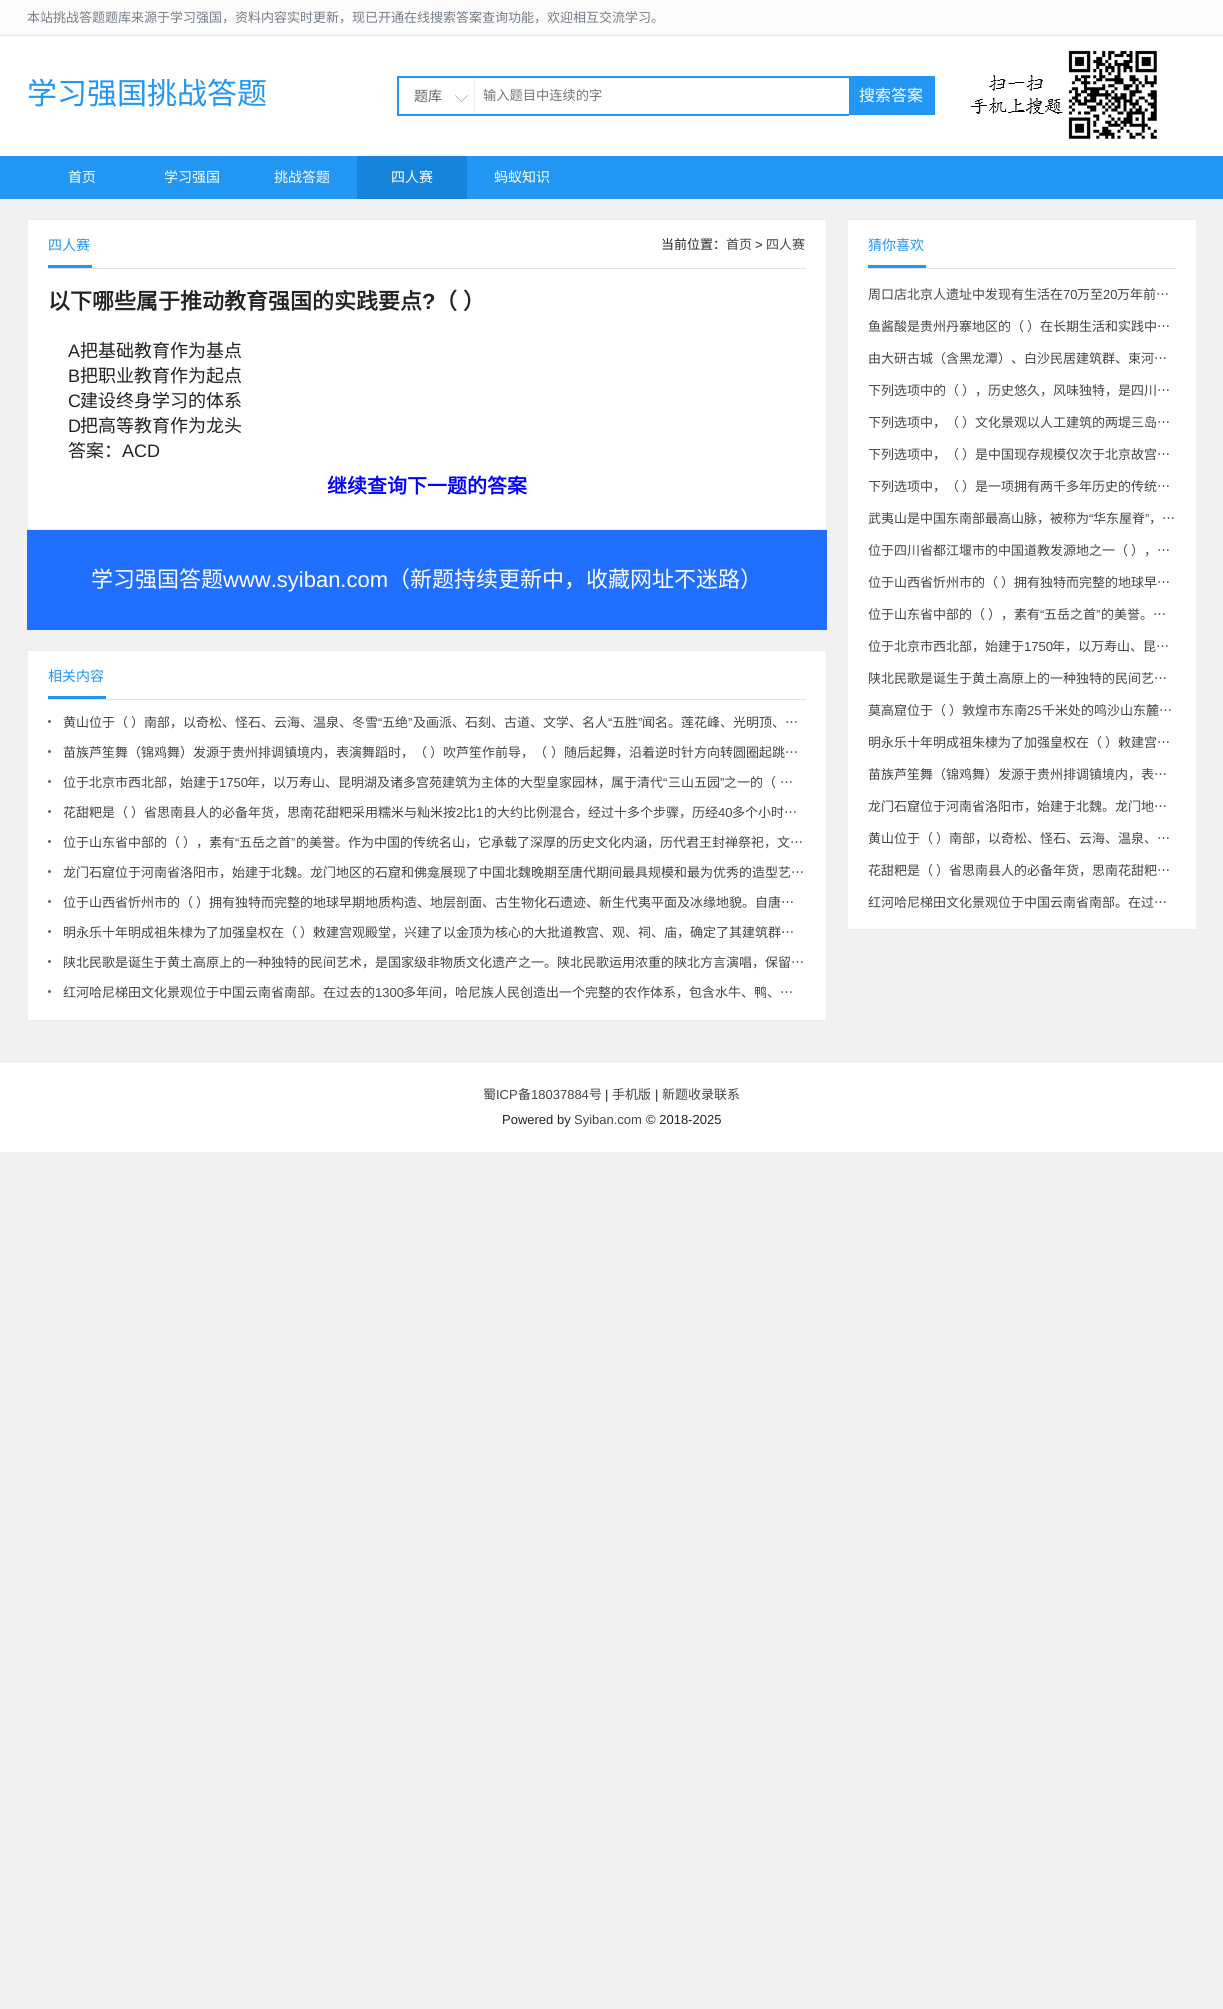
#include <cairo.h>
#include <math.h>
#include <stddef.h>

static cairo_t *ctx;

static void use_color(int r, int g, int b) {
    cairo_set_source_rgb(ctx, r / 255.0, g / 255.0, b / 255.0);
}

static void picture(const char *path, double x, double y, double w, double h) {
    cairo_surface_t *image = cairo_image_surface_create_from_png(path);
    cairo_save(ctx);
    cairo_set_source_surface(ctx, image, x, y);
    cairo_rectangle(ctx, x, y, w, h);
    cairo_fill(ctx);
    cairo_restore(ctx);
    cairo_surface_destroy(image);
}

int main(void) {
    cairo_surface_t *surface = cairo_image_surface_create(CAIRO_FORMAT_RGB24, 1223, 2009);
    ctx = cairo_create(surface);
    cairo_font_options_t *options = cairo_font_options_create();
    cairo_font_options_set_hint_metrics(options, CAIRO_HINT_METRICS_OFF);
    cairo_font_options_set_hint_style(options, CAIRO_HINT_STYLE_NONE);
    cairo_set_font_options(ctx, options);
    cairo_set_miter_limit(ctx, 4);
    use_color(241, 241, 241);
    cairo_paint(ctx);
    use_color(251, 251, 251);
    cairo_rectangle(ctx, 0, 0, 1223, 35);
    cairo_fill(ctx);
    use_color(232, 232, 232);
    cairo_rectangle(ctx, 0, 35, 1223, 1);
    cairo_fill(ctx);
    cairo_select_font_face(ctx, "Noto Sans CJK SC", CAIRO_FONT_SLANT_NORMAL, CAIRO_FONT_WEIGHT_NORMAL);
    cairo_set_font_size(ctx, 13);
    use_color(116, 125, 135);
    cairo_move_to(ctx, 27, 22);
    cairo_show_text(ctx, "本站挑战答题题库来源于学习强国，资料内容实时更新，现已开通在线搜索答案查询功能，欢迎相互交流学习。");
    use_color(255, 255, 255);
    cairo_rectangle(ctx, 0, 36, 1223, 120);
    cairo_fill(ctx);
    cairo_set_font_size(ctx, 30);
    use_color(33, 150, 243);
    cairo_move_to(ctx, 27, 104);
    cairo_show_text(ctx, "学习强国挑战答题");
    cairo_rectangle(ctx, 397, 76, 452, 2);
    cairo_fill(ctx);
    cairo_rectangle(ctx, 397, 114, 452, 2);
    cairo_fill(ctx);
    cairo_rectangle(ctx, 397, 76, 2, 40);
    cairo_fill(ctx);
    use_color(238, 238, 238);
    cairo_rectangle(ctx, 474, 78, 1, 36);
    cairo_fill(ctx);
    picture("img1.png", 455, 95, 13, 7);
    cairo_set_font_size(ctx, 14);
    use_color(102, 102, 102);
    cairo_move_to(ctx, 414, 101);
    cairo_show_text(ctx, "题库");
    cairo_set_font_size(ctx, 13.25);
    use_color(117, 117, 117);
    cairo_move_to(ctx, 483, 100);
    cairo_show_text(ctx, "输入题目中连续的字");
    use_color(33, 150, 243);
    cairo_rectangle(ctx, 849, 76, 86, 39);
    cairo_fill(ctx);
    cairo_set_font_size(ctx, 16);
    use_color(255, 255, 255);
    cairo_move_to(ctx, 859, 101);
    cairo_show_text(ctx, "搜索答案");
    picture("img2.png", 971, 50, 186, 89);
    use_color(33, 150, 243);
    cairo_rectangle(ctx, 0, 156, 1223, 43);
    cairo_fill(ctx);
    cairo_set_font_size(ctx, 14);
    use_color(255, 255, 255);
    cairo_move_to(ctx, 68, 182);
    cairo_show_text(ctx, "首页");
    cairo_move_to(ctx, 164, 182);
    cairo_show_text(ctx, "学习强国");
    cairo_move_to(ctx, 274, 182);
    cairo_show_text(ctx, "挑战答题");
    use_color(23, 132, 219);
    cairo_rectangle(ctx, 357, 156, 110, 43);
    cairo_fill(ctx);
    use_color(255, 255, 255);
    cairo_move_to(ctx, 391, 182);
    cairo_show_text(ctx, "四人赛");
    cairo_move_to(ctx, 494, 182);
    cairo_show_text(ctx, "蚂蚁知识");
    cairo_rectangle(ctx, 27.5, 219.5, 799, 310);
    cairo_fill_preserve(ctx);
    use_color(238, 238, 238);
    cairo_set_line_width(ctx, 1);
    cairo_stroke(ctx);
    use_color(228, 227, 227);
    cairo_rectangle(ctx, 48, 268, 758, 1);
    cairo_fill(ctx);
    use_color(33, 150, 243);
    cairo_rectangle(ctx, 48, 265, 44, 3);
    cairo_fill(ctx);
    cairo_move_to(ctx, 48, 250);
    cairo_show_text(ctx, "四人赛");
    cairo_set_font_size(ctx, 13);
    use_color(35, 35, 35);
    cairo_move_to(ctx, 661, 249);
    cairo_show_text(ctx, "当前位置：");
    use_color(69, 69, 69);
    cairo_move_to(ctx, 726, 249);
    cairo_show_text(ctx, "首页");
    cairo_select_font_face(ctx, "Liberation Sans", CAIRO_FONT_SLANT_NORMAL, CAIRO_FONT_WEIGHT_NORMAL);
    use_color(35, 35, 35);
    cairo_move_to(ctx, 755, 249);
    cairo_show_text(ctx, ">");
    cairo_select_font_face(ctx, "Noto Sans CJK SC", CAIRO_FONT_SLANT_NORMAL, CAIRO_FONT_WEIGHT_NORMAL);
    use_color(69, 69, 69);
    cairo_move_to(ctx, 766, 249);
    cairo_show_text(ctx, "四人赛");
    cairo_select_font_face(ctx, "Noto Sans CJK SC", CAIRO_FONT_SLANT_NORMAL, CAIRO_FONT_WEIGHT_BOLD);
    cairo_set_font_size(ctx, 22);
    use_color(35, 35, 35);
    cairo_move_to(ctx, 48, 309);
    cairo_show_text(ctx, "以下哪些属于推动教育强国的实践要点");
    cairo_select_font_face(ctx, "Liberation Sans", CAIRO_FONT_SLANT_NORMAL, CAIRO_FONT_WEIGHT_BOLD);
    cairo_move_to(ctx, 422, 309);
    cairo_show_text(ctx, "?");
    cairo_select_font_face(ctx, "Noto Sans CJK SC", CAIRO_FONT_SLANT_NORMAL, CAIRO_FONT_WEIGHT_BOLD);
    cairo_move_to(ctx, 435, 309);
    cairo_show_text(ctx, "（");
    cairo_move_to(ctx, 463, 309);
    cairo_show_text(ctx, "）");
    cairo_select_font_face(ctx, "Liberation Sans", CAIRO_FONT_SLANT_NORMAL, CAIRO_FONT_WEIGHT_NORMAL);
    cairo_set_font_size(ctx, 18);
    cairo_move_to(ctx, 68, 357);
    cairo_show_text(ctx, "A");
    cairo_select_font_face(ctx, "Noto Sans CJK SC", CAIRO_FONT_SLANT_NORMAL, CAIRO_FONT_WEIGHT_NORMAL);
    cairo_move_to(ctx, 80, 357);
    cairo_show_text(ctx, "把基础教育作为基点");
    cairo_select_font_face(ctx, "Liberation Sans", CAIRO_FONT_SLANT_NORMAL, CAIRO_FONT_WEIGHT_NORMAL);
    cairo_move_to(ctx, 68, 382);
    cairo_show_text(ctx, "B");
    cairo_select_font_face(ctx, "Noto Sans CJK SC", CAIRO_FONT_SLANT_NORMAL, CAIRO_FONT_WEIGHT_NORMAL);
    cairo_move_to(ctx, 80, 382);
    cairo_show_text(ctx, "把职业教育作为起点");
    cairo_select_font_face(ctx, "Liberation Sans", CAIRO_FONT_SLANT_NORMAL, CAIRO_FONT_WEIGHT_NORMAL);
    cairo_move_to(ctx, 68, 407);
    cairo_show_text(ctx, "C");
    cairo_select_font_face(ctx, "Noto Sans CJK SC", CAIRO_FONT_SLANT_NORMAL, CAIRO_FONT_WEIGHT_NORMAL);
    cairo_move_to(ctx, 80, 407);
    cairo_show_text(ctx, "建设终身学习的体系");
    cairo_select_font_face(ctx, "Liberation Sans", CAIRO_FONT_SLANT_NORMAL, CAIRO_FONT_WEIGHT_NORMAL);
    cairo_move_to(ctx, 68, 432);
    cairo_show_text(ctx, "D");
    cairo_select_font_face(ctx, "Noto Sans CJK SC", CAIRO_FONT_SLANT_NORMAL, CAIRO_FONT_WEIGHT_NORMAL);
    cairo_move_to(ctx, 80, 432);
    cairo_show_text(ctx, "把高等教育作为龙头");
    cairo_move_to(ctx, 68, 457);
    cairo_show_text(ctx, "答案：");
    cairo_select_font_face(ctx, "Liberation Sans", CAIRO_FONT_SLANT_NORMAL, CAIRO_FONT_WEIGHT_NORMAL);
    cairo_move_to(ctx, 122, 457);
    cairo_show_text(ctx, "ACD");
    cairo_select_font_face(ctx, "Noto Sans CJK SC", CAIRO_FONT_SLANT_NORMAL, CAIRO_FONT_WEIGHT_BOLD);
    cairo_set_font_size(ctx, 20);
    use_color(0, 0, 255);
    cairo_move_to(ctx, 327, 493);
    cairo_show_text(ctx, "继续查询下一题的答案");
    use_color(32, 111, 255);
    cairo_rectangle(ctx, 27, 530, 800, 100);
    cairo_fill(ctx);
    cairo_select_font_face(ctx, "Noto Sans CJK SC", CAIRO_FONT_SLANT_NORMAL, CAIRO_FONT_WEIGHT_NORMAL);
    cairo_set_font_size(ctx, 22);
    use_color(255, 255, 255);
    cairo_move_to(ctx, 91, 587);
    cairo_show_text(ctx, "学习强国答题");
    cairo_select_font_face(ctx, "Liberation Sans", CAIRO_FONT_SLANT_NORMAL, CAIRO_FONT_WEIGHT_NORMAL);
    cairo_move_to(ctx, 223, 587);
    cairo_show_text(ctx, "www.syiban.com");
    cairo_select_font_face(ctx, "Noto Sans CJK SC", CAIRO_FONT_SLANT_NORMAL, CAIRO_FONT_WEIGHT_NORMAL);
    cairo_move_to(ctx, 388, 587);
    cairo_show_text(ctx, "（新题持续更新中，收藏网址不迷路）");
    cairo_rectangle(ctx, 27.5, 650.5, 799, 370);
    cairo_fill_preserve(ctx);
    use_color(238, 238, 238);
    cairo_stroke(ctx);
    use_color(228, 227, 227);
    cairo_rectangle(ctx, 48, 699, 758, 1);
    cairo_fill(ctx);
    use_color(33, 150, 243);
    cairo_rectangle(ctx, 48, 696, 58, 3);
    cairo_fill(ctx);
    cairo_set_font_size(ctx, 14);
    cairo_move_to(ctx, 48, 681);
    cairo_show_text(ctx, "相关内容");
    cairo_set_font_size(ctx, 13);
    use_color(69, 69, 69);
    cairo_move_to(ctx, 63, 727);
    cairo_show_text(ctx, "黄山位于（");
    cairo_move_to(ctx, 131, 727);
    cairo_show_text(ctx, "）南部，以奇松、怪石、云海、温泉、冬雪");
    cairo_select_font_face(ctx, "Liberation Sans", CAIRO_FONT_SLANT_NORMAL, CAIRO_FONT_WEIGHT_NORMAL);
    cairo_move_to(ctx, 378, 727);
    cairo_show_text(ctx, "“");
    cairo_select_font_face(ctx, "Noto Sans CJK SC", CAIRO_FONT_SLANT_NORMAL, CAIRO_FONT_WEIGHT_NORMAL);
    cairo_move_to(ctx, 382, 727);
    cairo_show_text(ctx, "五绝");
    cairo_select_font_face(ctx, "Liberation Sans", CAIRO_FONT_SLANT_NORMAL, CAIRO_FONT_WEIGHT_NORMAL);
    cairo_move_to(ctx, 408, 727);
    cairo_show_text(ctx, "”");
    cairo_select_font_face(ctx, "Noto Sans CJK SC", CAIRO_FONT_SLANT_NORMAL, CAIRO_FONT_WEIGHT_NORMAL);
    cairo_move_to(ctx, 413, 727);
    cairo_show_text(ctx, "及画派、石刻、古道、文学、名人");
    cairo_select_font_face(ctx, "Liberation Sans", CAIRO_FONT_SLANT_NORMAL, CAIRO_FONT_WEIGHT_NORMAL);
    cairo_move_to(ctx, 608, 727);
    cairo_show_text(ctx, "“");
    cairo_select_font_face(ctx, "Noto Sans CJK SC", CAIRO_FONT_SLANT_NORMAL, CAIRO_FONT_WEIGHT_NORMAL);
    cairo_move_to(ctx, 612, 727);
    cairo_show_text(ctx, "五胜");
    cairo_select_font_face(ctx, "Liberation Sans", CAIRO_FONT_SLANT_NORMAL, CAIRO_FONT_WEIGHT_NORMAL);
    cairo_move_to(ctx, 638, 727);
    cairo_show_text(ctx, "”");
    cairo_select_font_face(ctx, "Noto Sans CJK SC", CAIRO_FONT_SLANT_NORMAL, CAIRO_FONT_WEIGHT_NORMAL);
    cairo_move_to(ctx, 642, 727);
    cairo_show_text(ctx, "闻名。莲花峰、光明顶、…");
    use_color(102, 102, 102);
    cairo_new_path(ctx);
    cairo_arc(ctx, 49.5, 721.5, 1.5, 0, 2 * M_PI);
    cairo_fill(ctx);
    cairo_arc(ctx, 49.5, 751.5, 1.5, 0, 2 * M_PI);
    cairo_fill(ctx);
    use_color(69, 69, 69);
    cairo_move_to(ctx, 63, 757);
    cairo_show_text(ctx, "苗族芦笙舞（锦鸡舞）发源于贵州排调镇境内，表演舞蹈时，（");
    cairo_move_to(ctx, 430, 757);
    cairo_show_text(ctx, "）吹芦笙作前导，（");
    cairo_move_to(ctx, 551, 757);
    cairo_show_text(ctx, "）随后起舞，沿着逆时针方向转圆圈起跳…");
    cairo_move_to(ctx, 63, 787);
    cairo_show_text(ctx, "位于北京市西北部，始建于");
    cairo_select_font_face(ctx, "Liberation Sans", CAIRO_FONT_SLANT_NORMAL, CAIRO_FONT_WEIGHT_NORMAL);
    cairo_move_to(ctx, 219, 787);
    cairo_show_text(ctx, "1750");
    cairo_select_font_face(ctx, "Noto Sans CJK SC", CAIRO_FONT_SLANT_NORMAL, CAIRO_FONT_WEIGHT_NORMAL);
    cairo_move_to(ctx, 247, 787);
    cairo_show_text(ctx, "年，以万寿山、昆明湖及诸多宫苑建筑为主体的大型皇家园林，属于清代");
    cairo_select_font_face(ctx, "Liberation Sans", CAIRO_FONT_SLANT_NORMAL, CAIRO_FONT_WEIGHT_NORMAL);
    cairo_move_to(ctx, 663, 787);
    cairo_show_text(ctx, "“");
    cairo_select_font_face(ctx, "Noto Sans CJK SC", CAIRO_FONT_SLANT_NORMAL, CAIRO_FONT_WEIGHT_NORMAL);
    cairo_move_to(ctx, 668, 787);
    cairo_show_text(ctx, "三山五园");
    cairo_select_font_face(ctx, "Liberation Sans", CAIRO_FONT_SLANT_NORMAL, CAIRO_FONT_WEIGHT_NORMAL);
    cairo_move_to(ctx, 720, 787);
    cairo_show_text(ctx, "”");
    cairo_select_font_face(ctx, "Noto Sans CJK SC", CAIRO_FONT_SLANT_NORMAL, CAIRO_FONT_WEIGHT_NORMAL);
    cairo_move_to(ctx, 724, 787);
    cairo_show_text(ctx, "之一的（");
    use_color(102, 102, 102);
    cairo_new_path(ctx);
    cairo_arc(ctx, 49.5, 781.5, 1.5, 0, 2 * M_PI);
    cairo_fill(ctx);
    use_color(69, 69, 69);
    cairo_move_to(ctx, 780, 787);
    cairo_show_text(ctx, "…");
    use_color(102, 102, 102);
    cairo_new_path(ctx);
    cairo_arc(ctx, 49.5, 811.5, 1.5, 0, 2 * M_PI);
    cairo_fill(ctx);
    use_color(69, 69, 69);
    cairo_move_to(ctx, 63, 817);
    cairo_show_text(ctx, "花甜粑是（");
    cairo_move_to(ctx, 131, 817);
    cairo_show_text(ctx, "）省思南县人的必备年货，思南花甜粑采用糯米与籼米按");
    cairo_select_font_face(ctx, "Liberation Sans", CAIRO_FONT_SLANT_NORMAL, CAIRO_FONT_WEIGHT_NORMAL);
    cairo_move_to(ctx, 456, 817);
    cairo_show_text(ctx, "2");
    cairo_select_font_face(ctx, "Noto Sans CJK SC", CAIRO_FONT_SLANT_NORMAL, CAIRO_FONT_WEIGHT_NORMAL);
    cairo_move_to(ctx, 463, 817);
    cairo_show_text(ctx, "比");
    cairo_select_font_face(ctx, "Liberation Sans", CAIRO_FONT_SLANT_NORMAL, CAIRO_FONT_WEIGHT_NORMAL);
    cairo_move_to(ctx, 476, 817);
    cairo_show_text(ctx, "1");
    cairo_select_font_face(ctx, "Noto Sans CJK SC", CAIRO_FONT_SLANT_NORMAL, CAIRO_FONT_WEIGHT_NORMAL);
    cairo_move_to(ctx, 484, 817);
    cairo_show_text(ctx, "的大约比例混合，经过十多个步骤，历经");
    cairo_select_font_face(ctx, "Liberation Sans", CAIRO_FONT_SLANT_NORMAL, CAIRO_FONT_WEIGHT_NORMAL);
    cairo_move_to(ctx, 718, 817);
    cairo_show_text(ctx, "40");
    cairo_select_font_face(ctx, "Noto Sans CJK SC", CAIRO_FONT_SLANT_NORMAL, CAIRO_FONT_WEIGHT_NORMAL);
    cairo_move_to(ctx, 732, 817);
    cairo_show_text(ctx, "多个小时…");
    cairo_move_to(ctx, 63, 847);
    cairo_show_text(ctx, "位于山东省中部的（");
    cairo_move_to(ctx, 183, 847);
    cairo_show_text(ctx, "），素有");
    cairo_select_font_face(ctx, "Liberation Sans", CAIRO_FONT_SLANT_NORMAL, CAIRO_FONT_WEIGHT_NORMAL);
    cairo_move_to(ctx, 235, 847);
    cairo_show_text(ctx, "“");
    cairo_select_font_face(ctx, "Noto Sans CJK SC", CAIRO_FONT_SLANT_NORMAL, CAIRO_FONT_WEIGHT_NORMAL);
    cairo_move_to(ctx, 239, 847);
    cairo_show_text(ctx, "五岳之首");
    cairo_select_font_face(ctx, "Liberation Sans", CAIRO_FONT_SLANT_NORMAL, CAIRO_FONT_WEIGHT_NORMAL);
    cairo_move_to(ctx, 291, 847);
    cairo_show_text(ctx, "”");
    cairo_select_font_face(ctx, "Noto Sans CJK SC", CAIRO_FONT_SLANT_NORMAL, CAIRO_FONT_WEIGHT_NORMAL);
    cairo_move_to(ctx, 296, 847);
    cairo_show_text(ctx, "的美誉。作为中国的传统名山，它承载了深厚的历史文化内涵，历代君王封禅祭祀，文…");
    use_color(102, 102, 102);
    cairo_new_path(ctx);
    cairo_arc(ctx, 49.5, 841.5, 1.5, 0, 2 * M_PI);
    cairo_fill(ctx);
    cairo_arc(ctx, 49.5, 871.5, 1.5, 0, 2 * M_PI);
    cairo_fill(ctx);
    use_color(69, 69, 69);
    cairo_move_to(ctx, 63, 877);
    cairo_show_text(ctx, "龙门石窟位于河南省洛阳市，始建于北魏。龙门地区的石窟和佛龛展现了中国北魏晚期至唐代期间最具规模和最为优秀的造型艺…");
    use_color(102, 102, 102);
    cairo_new_path(ctx);
    cairo_arc(ctx, 49.5, 901.5, 1.5, 0, 2 * M_PI);
    cairo_fill(ctx);
    use_color(69, 69, 69);
    cairo_move_to(ctx, 63, 907);
    cairo_show_text(ctx, "位于山西省忻州市的（");
    cairo_move_to(ctx, 196, 907);
    cairo_show_text(ctx, "）拥有独特而完整的地球早期地质构造、地层剖面、古生物化石遗迹、新生代夷平面及冰缘地貌。自唐…");
    use_color(102, 102, 102);
    cairo_new_path(ctx);
    cairo_arc(ctx, 49.5, 931.5, 1.5, 0, 2 * M_PI);
    cairo_fill(ctx);
    use_color(69, 69, 69);
    cairo_move_to(ctx, 63, 937);
    cairo_show_text(ctx, "明永乐十年明成祖朱棣为了加强皇权在（");
    cairo_move_to(ctx, 300, 937);
    cairo_show_text(ctx, "）敕建宫观殿堂，兴建了以金顶为核心的大批道教宫、观、祠、庙，确定了其建筑群…");
    use_color(102, 102, 102);
    cairo_new_path(ctx);
    cairo_arc(ctx, 49.5, 961.5, 1.5, 0, 2 * M_PI);
    cairo_fill(ctx);
    use_color(69, 69, 69);
    cairo_move_to(ctx, 63, 967);
    cairo_show_text(ctx, "陕北民歌是诞生于黄土高原上的一种独特的民间艺术，是国家级非物质文化遗产之一。陕北民歌运用浓重的陕北方言演唱，保留…");
    use_color(102, 102, 102);
    cairo_new_path(ctx);
    cairo_arc(ctx, 49.5, 991.5, 1.5, 0, 2 * M_PI);
    cairo_fill(ctx);
    use_color(69, 69, 69);
    cairo_move_to(ctx, 63, 997);
    cairo_show_text(ctx, "红河哈尼梯田文化景观位于中国云南省南部。在过去的");
    cairo_select_font_face(ctx, "Liberation Sans", CAIRO_FONT_SLANT_NORMAL, CAIRO_FONT_WEIGHT_NORMAL);
    cairo_move_to(ctx, 375, 997);
    cairo_show_text(ctx, "1300");
    cairo_select_font_face(ctx, "Noto Sans CJK SC", CAIRO_FONT_SLANT_NORMAL, CAIRO_FONT_WEIGHT_NORMAL);
    cairo_move_to(ctx, 403, 997);
    cairo_show_text(ctx, "多年间，哈尼族人民创造出一个完整的农作体系，包含水牛、鸭、…");
    use_color(255, 255, 255);
    cairo_rectangle(ctx, 847.5, 219.5, 349, 710);
    cairo_fill_preserve(ctx);
    use_color(238, 238, 238);
    cairo_stroke(ctx);
    use_color(228, 227, 227);
    cairo_rectangle(ctx, 868, 268, 308, 1);
    cairo_fill(ctx);
    use_color(33, 150, 243);
    cairo_rectangle(ctx, 868, 265, 58, 3);
    cairo_fill(ctx);
    cairo_set_font_size(ctx, 14);
    cairo_move_to(ctx, 868, 250);
    cairo_show_text(ctx, "猜你喜欢");
    cairo_set_font_size(ctx, 13);
    use_color(69, 69, 69);
    cairo_move_to(ctx, 868, 299);
    cairo_show_text(ctx, "周口店北京人遗址中发现有生活在");
    cairo_select_font_face(ctx, "Liberation Sans", CAIRO_FONT_SLANT_NORMAL, CAIRO_FONT_WEIGHT_NORMAL);
    cairo_move_to(ctx, 1063, 299);
    cairo_show_text(ctx, "70");
    cairo_select_font_face(ctx, "Noto Sans CJK SC", CAIRO_FONT_SLANT_NORMAL, CAIRO_FONT_WEIGHT_NORMAL);
    cairo_move_to(ctx, 1077, 299);
    cairo_show_text(ctx, "万至");
    cairo_select_font_face(ctx, "Liberation Sans", CAIRO_FONT_SLANT_NORMAL, CAIRO_FONT_WEIGHT_NORMAL);
    cairo_move_to(ctx, 1103, 299);
    cairo_show_text(ctx, "20");
    cairo_select_font_face(ctx, "Noto Sans CJK SC", CAIRO_FONT_SLANT_NORMAL, CAIRO_FONT_WEIGHT_NORMAL);
    cairo_move_to(ctx, 1117, 299);
    cairo_show_text(ctx, "万年前…");
    cairo_move_to(ctx, 868, 331);
    cairo_show_text(ctx, "鱼酱酸是贵州丹寨地区的（");
    cairo_move_to(ctx, 1027, 331);
    cairo_show_text(ctx, "）在长期生活和实践中…");
    cairo_move_to(ctx, 868, 363);
    cairo_show_text(ctx, "由大研古城（含黑龙潭）、白沙民居建筑群、束河…");
    cairo_move_to(ctx, 868, 395);
    cairo_show_text(ctx, "下列选项中的（");
    cairo_move_to(ctx, 962, 395);
    cairo_show_text(ctx, "），历史悠久，风味独特，是四川…");
    cairo_move_to(ctx, 868, 427);
    cairo_show_text(ctx, "下列选项中，（");
    cairo_move_to(ctx, 962, 427);
    cairo_show_text(ctx, "）文化景观以人工建筑的两堤三岛…");
    cairo_move_to(ctx, 868, 459);
    cairo_show_text(ctx, "下列选项中，（");
    cairo_move_to(ctx, 962, 459);
    cairo_show_text(ctx, "）是中国现存规模仅次于北京故宫…");
    cairo_move_to(ctx, 868, 491);
    cairo_show_text(ctx, "下列选项中，（");
    cairo_move_to(ctx, 962, 491);
    cairo_show_text(ctx, "）是一项拥有两千多年历史的传统…");
    cairo_move_to(ctx, 868, 523);
    cairo_show_text(ctx, "武夷山是中国东南部最高山脉，被称为");
    cairo_select_font_face(ctx, "Liberation Sans", CAIRO_FONT_SLANT_NORMAL, CAIRO_FONT_WEIGHT_NORMAL);
    cairo_move_to(ctx, 1089, 523);
    cairo_show_text(ctx, "“");
    cairo_select_font_face(ctx, "Noto Sans CJK SC", CAIRO_FONT_SLANT_NORMAL, CAIRO_FONT_WEIGHT_NORMAL);
    cairo_move_to(ctx, 1093, 523);
    cairo_show_text(ctx, "华东屋脊");
    cairo_select_font_face(ctx, "Liberation Sans", CAIRO_FONT_SLANT_NORMAL, CAIRO_FONT_WEIGHT_NORMAL);
    cairo_move_to(ctx, 1145, 523);
    cairo_show_text(ctx, "”");
    cairo_select_font_face(ctx, "Noto Sans CJK SC", CAIRO_FONT_SLANT_NORMAL, CAIRO_FONT_WEIGHT_NORMAL);
    cairo_move_to(ctx, 1149, 523);
    cairo_show_text(ctx, "，…");
    cairo_move_to(ctx, 868, 555);
    cairo_show_text(ctx, "位于四川省都江堰市的中国道教发源地之一（");
    cairo_move_to(ctx, 1131, 555);
    cairo_show_text(ctx, "），…");
    cairo_move_to(ctx, 868, 587);
    cairo_show_text(ctx, "位于山西省忻州市的（");
    cairo_move_to(ctx, 1001, 587);
    cairo_show_text(ctx, "）拥有独特而完整的地球早…");
    cairo_move_to(ctx, 868, 619);
    cairo_show_text(ctx, "位于山东省中部的（");
    cairo_move_to(ctx, 988, 619);
    cairo_show_text(ctx, "），素有");
    cairo_select_font_face(ctx, "Liberation Sans", CAIRO_FONT_SLANT_NORMAL, CAIRO_FONT_WEIGHT_NORMAL);
    cairo_move_to(ctx, 1040, 619);
    cairo_show_text(ctx, "“");
    cairo_select_font_face(ctx, "Noto Sans CJK SC", CAIRO_FONT_SLANT_NORMAL, CAIRO_FONT_WEIGHT_NORMAL);
    cairo_move_to(ctx, 1044, 619);
    cairo_show_text(ctx, "五岳之首");
    cairo_select_font_face(ctx, "Liberation Sans", CAIRO_FONT_SLANT_NORMAL, CAIRO_FONT_WEIGHT_NORMAL);
    cairo_move_to(ctx, 1096, 619);
    cairo_show_text(ctx, "”");
    cairo_select_font_face(ctx, "Noto Sans CJK SC", CAIRO_FONT_SLANT_NORMAL, CAIRO_FONT_WEIGHT_NORMAL);
    cairo_move_to(ctx, 1101, 619);
    cairo_show_text(ctx, "的美誉。…");
    cairo_move_to(ctx, 868, 651);
    cairo_show_text(ctx, "位于北京市西北部，始建于");
    cairo_select_font_face(ctx, "Liberation Sans", CAIRO_FONT_SLANT_NORMAL, CAIRO_FONT_WEIGHT_NORMAL);
    cairo_move_to(ctx, 1024, 651);
    cairo_show_text(ctx, "1750");
    cairo_select_font_face(ctx, "Noto Sans CJK SC", CAIRO_FONT_SLANT_NORMAL, CAIRO_FONT_WEIGHT_NORMAL);
    cairo_move_to(ctx, 1052, 651);
    cairo_show_text(ctx, "年，以万寿山、昆…");
    cairo_move_to(ctx, 868, 683);
    cairo_show_text(ctx, "陕北民歌是诞生于黄土高原上的一种独特的民间艺…");
    cairo_move_to(ctx, 868, 715);
    cairo_show_text(ctx, "莫高窟位于（");
    cairo_move_to(ctx, 949, 715);
    cairo_show_text(ctx, "）敦煌市东南");
    cairo_select_font_face(ctx, "Liberation Sans", CAIRO_FONT_SLANT_NORMAL, CAIRO_FONT_WEIGHT_NORMAL);
    cairo_move_to(ctx, 1027, 715);
    cairo_show_text(ctx, "25");
    cairo_select_font_face(ctx, "Noto Sans CJK SC", CAIRO_FONT_SLANT_NORMAL, CAIRO_FONT_WEIGHT_NORMAL);
    cairo_move_to(ctx, 1042, 715);
    cairo_show_text(ctx, "千米处的鸣沙山东麓…");
    cairo_move_to(ctx, 868, 747);
    cairo_show_text(ctx, "明永乐十年明成祖朱棣为了加强皇权在（");
    cairo_move_to(ctx, 1105, 747);
    cairo_show_text(ctx, "）敕建宫…");
    cairo_move_to(ctx, 868, 779);
    cairo_show_text(ctx, "苗族芦笙舞（锦鸡舞）发源于贵州排调镇境内，表…");
    cairo_move_to(ctx, 868, 811);
    cairo_show_text(ctx, "龙门石窟位于河南省洛阳市，始建于北魏。龙门地…");
    cairo_move_to(ctx, 868, 843);
    cairo_show_text(ctx, "黄山位于（");
    cairo_move_to(ctx, 936, 843);
    cairo_show_text(ctx, "）南部，以奇松、怪石、云海、温泉、…");
    cairo_move_to(ctx, 868, 875);
    cairo_show_text(ctx, "花甜粑是（");
    cairo_move_to(ctx, 936, 875);
    cairo_show_text(ctx, "）省思南县人的必备年货，思南花甜粑…");
    cairo_move_to(ctx, 868, 907);
    cairo_show_text(ctx, "红河哈尼梯田文化景观位于中国云南省南部。在过…");
    use_color(255, 255, 255);
    cairo_rectangle(ctx, 0, 1062, 1223, 90);
    cairo_fill(ctx);
    use_color(232, 232, 232);
    cairo_rectangle(ctx, 0, 1061, 1223, 1);
    cairo_fill(ctx);
    use_color(69, 69, 69);
    cairo_move_to(ctx, 483, 1099);
    cairo_show_text(ctx, "蜀");
    cairo_select_font_face(ctx, "Liberation Sans", CAIRO_FONT_SLANT_NORMAL, CAIRO_FONT_WEIGHT_NORMAL);
    cairo_move_to(ctx, 496, 1099);
    cairo_show_text(ctx, "ICP");
    cairo_select_font_face(ctx, "Noto Sans CJK SC", CAIRO_FONT_SLANT_NORMAL, CAIRO_FONT_WEIGHT_NORMAL);
    cairo_move_to(ctx, 518, 1099);
    cairo_show_text(ctx, "备");
    cairo_select_font_face(ctx, "Liberation Sans", CAIRO_FONT_SLANT_NORMAL, CAIRO_FONT_WEIGHT_NORMAL);
    cairo_move_to(ctx, 531, 1099);
    cairo_show_text(ctx, "18037884");
    cairo_select_font_face(ctx, "Noto Sans CJK SC", CAIRO_FONT_SLANT_NORMAL, CAIRO_FONT_WEIGHT_NORMAL);
    cairo_move_to(ctx, 589, 1099);
    cairo_show_text(ctx, "号");
    cairo_select_font_face(ctx, "Liberation Sans", CAIRO_FONT_SLANT_NORMAL, CAIRO_FONT_WEIGHT_NORMAL);
    use_color(35, 35, 35);
    cairo_move_to(ctx, 605, 1099);
    cairo_show_text(ctx, "|");
    cairo_select_font_face(ctx, "Noto Sans CJK SC", CAIRO_FONT_SLANT_NORMAL, CAIRO_FONT_WEIGHT_NORMAL);
    use_color(69, 69, 69);
    cairo_move_to(ctx, 612, 1099);
    cairo_show_text(ctx, "手机版");
    cairo_select_font_face(ctx, "Liberation Sans", CAIRO_FONT_SLANT_NORMAL, CAIRO_FONT_WEIGHT_NORMAL);
    use_color(35, 35, 35);
    cairo_move_to(ctx, 655, 1099);
    cairo_show_text(ctx, "|");
    cairo_select_font_face(ctx, "Noto Sans CJK SC", CAIRO_FONT_SLANT_NORMAL, CAIRO_FONT_WEIGHT_NORMAL);
    use_color(69, 69, 69);
    cairo_move_to(ctx, 662, 1099);
    cairo_show_text(ctx, "新题收录联系");
    cairo_select_font_face(ctx, "Liberation Sans", CAIRO_FONT_SLANT_NORMAL, CAIRO_FONT_WEIGHT_NORMAL);
    use_color(35, 35, 35);
    cairo_move_to(ctx, 502, 1124);
    cairo_show_text(ctx, "Powered by");
    use_color(69, 69, 69);
    cairo_move_to(ctx, 574, 1124);
    cairo_show_text(ctx, "Syiban.com");
    use_color(35, 35, 35);
    cairo_move_to(ctx, 646, 1124);
    cairo_show_text(ctx, "© 2018-2025");
    cairo_surface_write_to_png(surface, "result.png");
    cairo_font_options_destroy(options);
    cairo_destroy(ctx);
    cairo_surface_destroy(surface);
    return 0;
}
